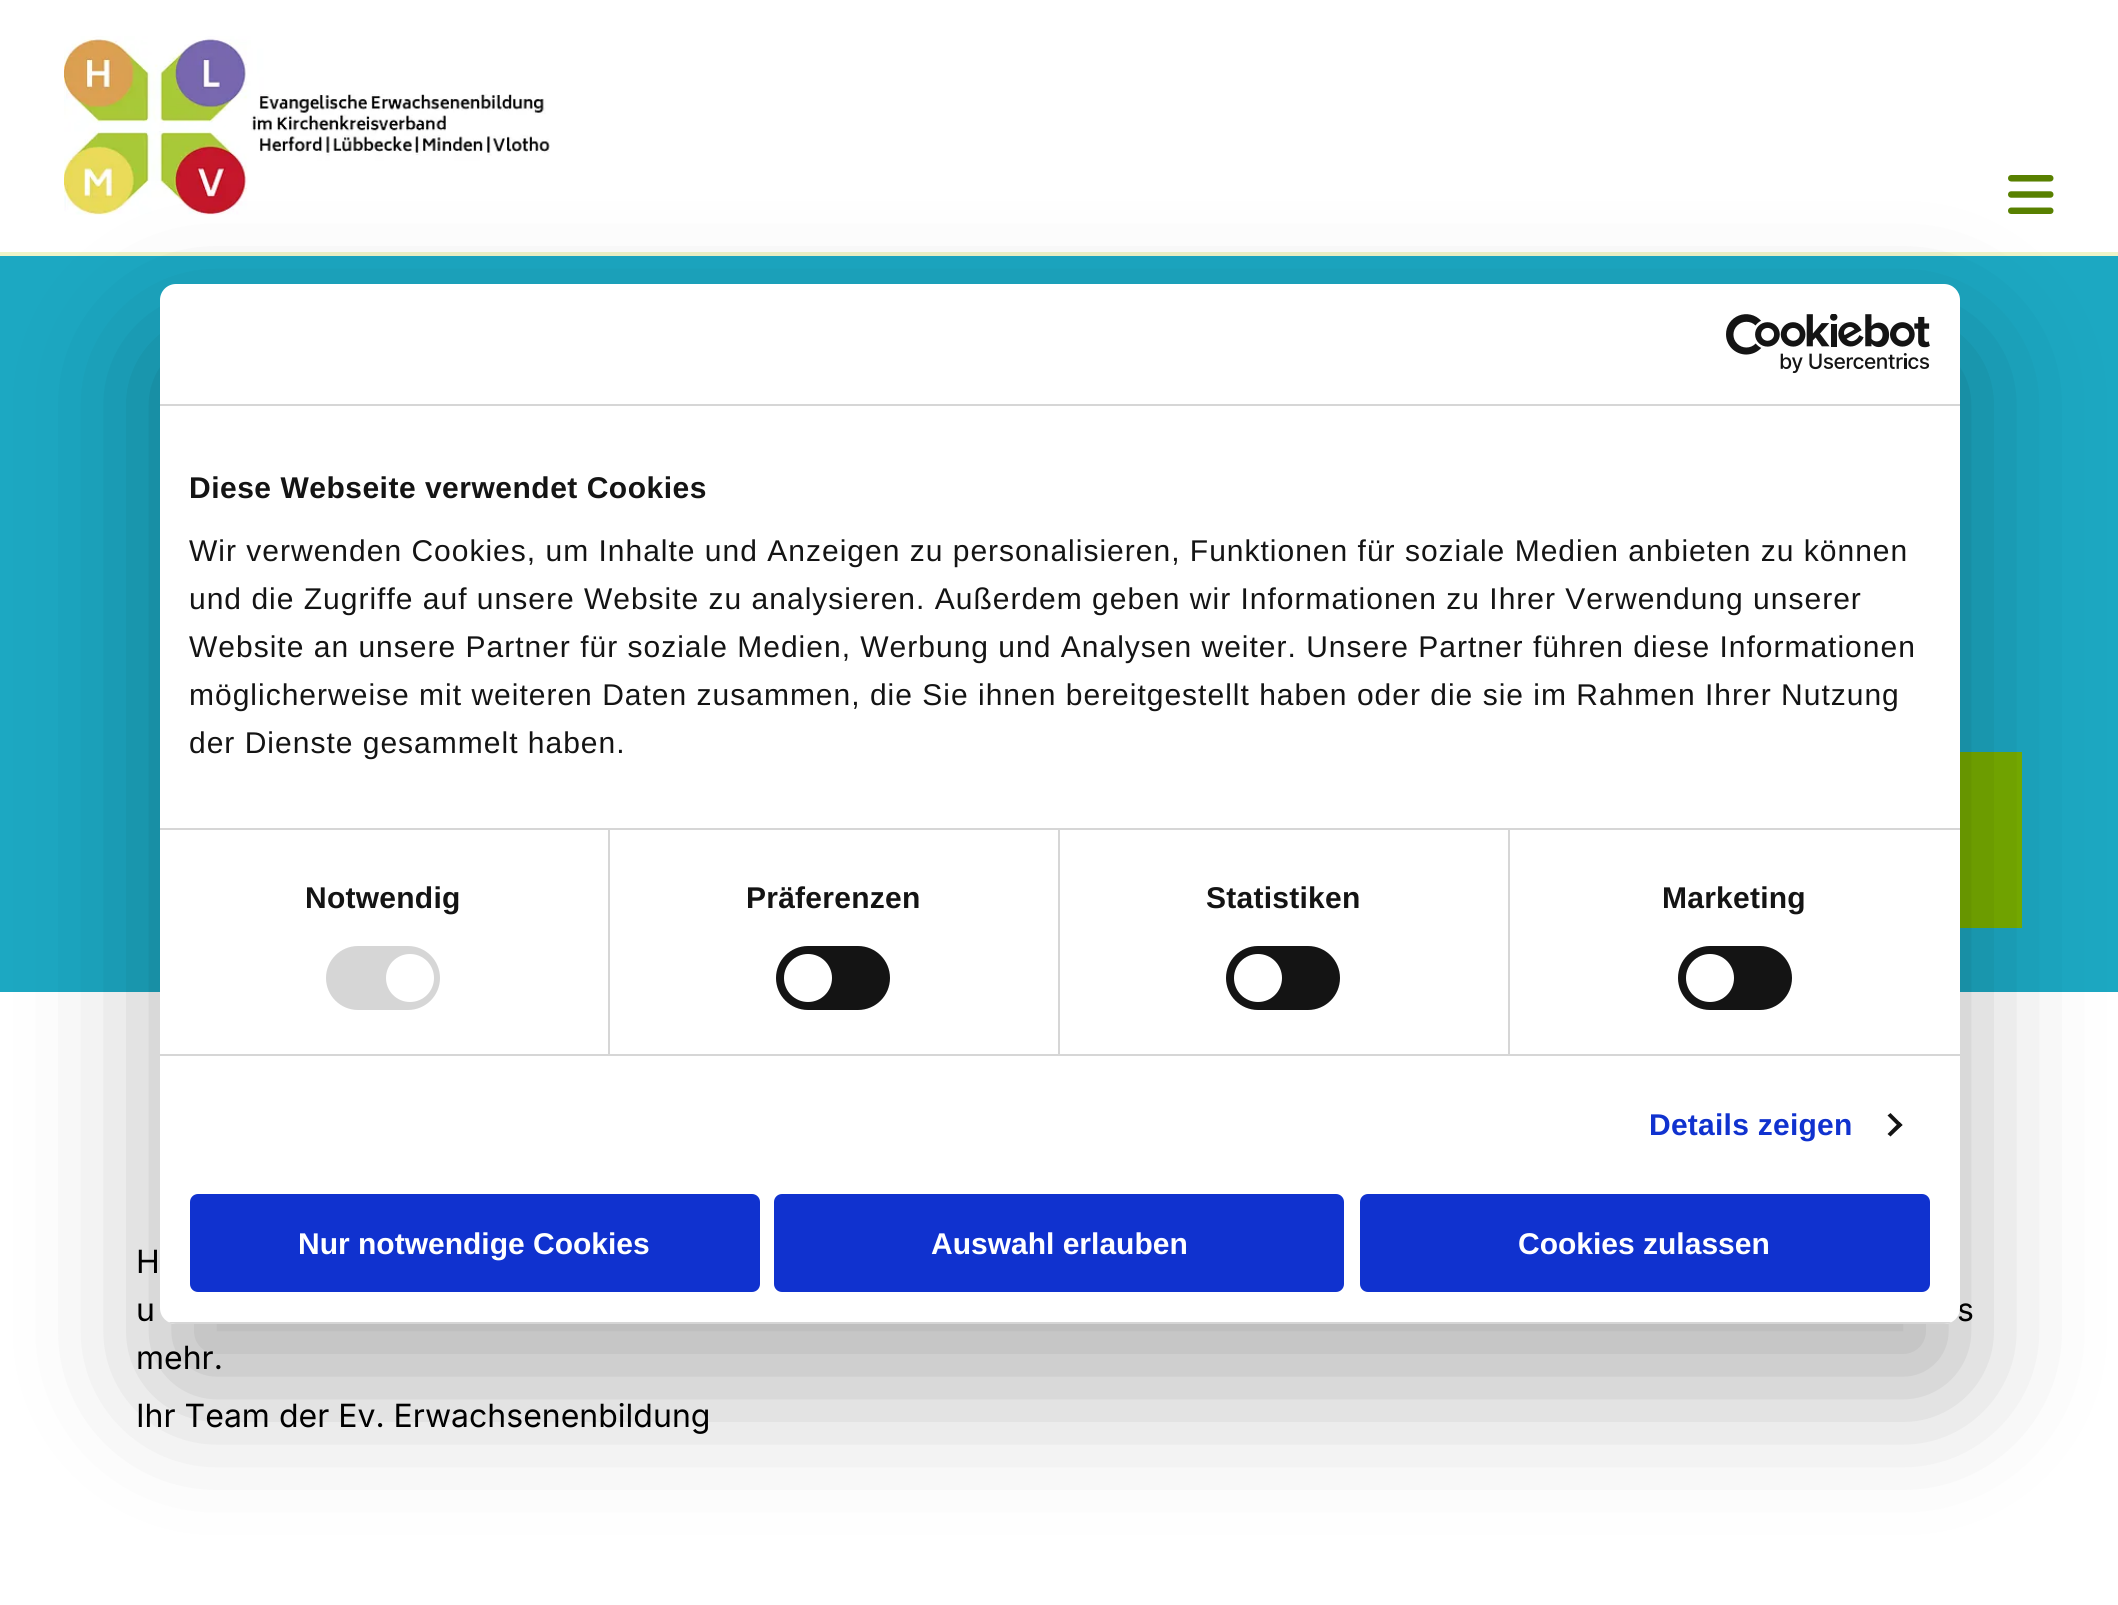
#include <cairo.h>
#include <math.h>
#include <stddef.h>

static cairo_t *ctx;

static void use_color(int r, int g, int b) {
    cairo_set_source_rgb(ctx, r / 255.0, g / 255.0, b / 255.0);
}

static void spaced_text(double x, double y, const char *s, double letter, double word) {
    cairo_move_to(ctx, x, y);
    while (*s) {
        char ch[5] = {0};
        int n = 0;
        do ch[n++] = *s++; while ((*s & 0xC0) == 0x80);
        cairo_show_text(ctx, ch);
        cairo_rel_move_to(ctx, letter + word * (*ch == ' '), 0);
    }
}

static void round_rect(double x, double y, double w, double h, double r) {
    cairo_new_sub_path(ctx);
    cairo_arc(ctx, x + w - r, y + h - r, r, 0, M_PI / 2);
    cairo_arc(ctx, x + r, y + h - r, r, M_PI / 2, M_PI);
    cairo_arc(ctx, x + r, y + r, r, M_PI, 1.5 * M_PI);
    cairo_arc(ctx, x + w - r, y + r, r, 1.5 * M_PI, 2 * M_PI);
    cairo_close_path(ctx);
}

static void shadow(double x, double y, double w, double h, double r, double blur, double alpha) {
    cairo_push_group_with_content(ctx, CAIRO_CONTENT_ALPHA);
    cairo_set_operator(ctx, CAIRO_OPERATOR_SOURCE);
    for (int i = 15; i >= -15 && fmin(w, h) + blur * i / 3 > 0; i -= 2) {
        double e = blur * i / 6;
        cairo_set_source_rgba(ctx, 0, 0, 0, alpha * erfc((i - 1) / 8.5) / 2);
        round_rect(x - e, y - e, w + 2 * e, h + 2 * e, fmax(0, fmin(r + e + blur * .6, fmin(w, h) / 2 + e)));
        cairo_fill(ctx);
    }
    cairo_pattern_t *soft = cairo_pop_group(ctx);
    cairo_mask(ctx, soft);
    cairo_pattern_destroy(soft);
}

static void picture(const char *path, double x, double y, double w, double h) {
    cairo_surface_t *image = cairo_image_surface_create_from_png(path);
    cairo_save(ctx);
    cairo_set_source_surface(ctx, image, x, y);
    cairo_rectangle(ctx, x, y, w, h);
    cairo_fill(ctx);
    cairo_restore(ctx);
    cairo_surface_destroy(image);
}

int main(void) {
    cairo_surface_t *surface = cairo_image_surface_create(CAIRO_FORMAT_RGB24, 2118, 1605);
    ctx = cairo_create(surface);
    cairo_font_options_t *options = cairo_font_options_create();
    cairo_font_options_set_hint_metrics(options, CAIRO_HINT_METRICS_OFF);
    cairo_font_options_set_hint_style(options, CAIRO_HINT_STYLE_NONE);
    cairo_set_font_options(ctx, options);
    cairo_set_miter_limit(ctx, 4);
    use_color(255, 255, 255);
    cairo_paint(ctx);
    picture("img2.png", 64, 36, 486, 179);
    picture("img3.png", 2008, 175, 46, 39);
    use_color(239, 244, 200);
    cairo_rectangle(ctx, 0, 252, 2118, 4);
    cairo_fill(ctx);
    use_color(28, 168, 194);
    cairo_rectangle(ctx, 0, 256, 2118, 736);
    cairo_fill(ctx);
    use_color(121, 175, 0);
    cairo_rectangle(ctx, 1960, 752, 62, 176);
    cairo_fill(ctx);
    use_color(0, 0, 0);
    shadow(160, 348, 1800, 1040, 16, 68, 0.3);
    cairo_select_font_face(ctx, "Inter", CAIRO_FONT_SLANT_NORMAL, CAIRO_FONT_WEIGHT_NORMAL);
    cairo_set_font_size(ctx, 32);
    use_color(0, 0, 0);
    cairo_move_to(ctx, 1957, 1321);
    cairo_show_text(ctx, "s");
    use_color(255, 255, 255);
    round_rect(160, 284, 1800, 1040, 16);
    cairo_fill(ctx);
    use_color(214, 214, 214);
    cairo_rectangle(ctx, 160, 404, 1800, 2);
    cairo_fill(ctx);
    picture("img1.png", 1726, 314, 204, 60);
    cairo_rectangle(ctx, 160, 828, 1800, 2);
    cairo_fill(ctx);
    cairo_select_font_face(ctx, "Liberation Sans", CAIRO_FONT_SLANT_NORMAL, CAIRO_FONT_WEIGHT_BOLD);
    cairo_set_font_size(ctx, 30);
    use_color(20, 20, 20);
    spaced_text(189, 498, "Diese Webseite verwendet Cookies", 0.5, 0);
    cairo_select_font_face(ctx, "Liberation Sans", CAIRO_FONT_SLANT_NORMAL, CAIRO_FONT_WEIGHT_NORMAL);
    spaced_text(189, 561, "Wir verwenden Cookies, um Inhalte und Anzeigen zu personalisieren, Funktionen für soziale Medien anbieten zu können", 1, 0);
    spaced_text(189, 609, "und die Zugriffe auf unsere Website zu analysieren. Außerdem geben wir Informationen zu Ihrer Verwendung unserer", 1, 0);
    spaced_text(189, 657, "Website an unsere Partner für soziale Medien, Werbung und Analysen weiter. Unsere Partner führen diese Informationen", 1, 0);
    spaced_text(189, 705, "möglicherweise mit weiteren Daten zusammen, die Sie ihnen bereitgestellt haben oder die sie im Rahmen Ihrer Nutzung", 1, 0);
    spaced_text(189, 753, "der Dienste gesammelt haben.", 1, 0);
    use_color(214, 214, 214);
    cairo_rectangle(ctx, 160, 1054, 1800, 2);
    cairo_fill(ctx);
    cairo_rectangle(ctx, 608, 830, 2, 224);
    cairo_fill(ctx);
    cairo_select_font_face(ctx, "Liberation Sans", CAIRO_FONT_SLANT_NORMAL, CAIRO_FONT_WEIGHT_BOLD);
    use_color(20, 20, 20);
    spaced_text(305, 908, "Notwendig", 0.25, 0);
    use_color(214, 214, 214);
    round_rect(326, 946, 114, 64, 32);
    cairo_fill(ctx);
    use_color(255, 255, 255);
    cairo_arc(ctx, 410, 978, 24, 0, 2 * M_PI);
    cairo_fill(ctx);
    use_color(214, 214, 214);
    cairo_rectangle(ctx, 1058, 830, 2, 224);
    cairo_fill(ctx);
    use_color(20, 20, 20);
    spaced_text(746, 908, "Präferenzen", 0.25, 0);
    round_rect(776, 946, 114, 64, 32);
    cairo_fill(ctx);
    use_color(255, 255, 255);
    cairo_arc(ctx, 808, 978, 24, 0, 2 * M_PI);
    cairo_fill(ctx);
    use_color(214, 214, 214);
    cairo_rectangle(ctx, 1508, 830, 2, 224);
    cairo_fill(ctx);
    use_color(20, 20, 20);
    spaced_text(1206, 908, "Statistiken", 0.25, 0);
    round_rect(1226, 946, 114, 64, 32);
    cairo_fill(ctx);
    use_color(255, 255, 255);
    cairo_arc(ctx, 1258, 978, 24, 0, 2 * M_PI);
    cairo_fill(ctx);
    use_color(20, 20, 20);
    spaced_text(1662, 908, "Marketing", 0.25, 0);
    round_rect(1678, 946, 114, 64, 32);
    cairo_fill(ctx);
    use_color(255, 255, 255);
    cairo_arc(ctx, 1710, 978, 24, 0, 2 * M_PI);
    cairo_fill(ctx);
    use_color(16, 50, 207);
    spaced_text(1649, 1135, "Details zeigen", 0.25, 0);
    use_color(20, 20, 20);
    cairo_new_path(ctx);
    cairo_move_to(ctx, 1890.5, 1113);
    cairo_line_to(ctx, 1902.5, 1125);
    cairo_line_to(ctx, 1899.5, 1127.5);
    cairo_line_to(ctx, 1887.5, 1115.5);
    cairo_close_path(ctx);
    cairo_fill(ctx);
    cairo_new_path(ctx);
    cairo_move_to(ctx, 1899.5, 1122);
    cairo_line_to(ctx, 1902.5, 1125);
    cairo_line_to(ctx, 1890.5, 1136.5);
    cairo_line_to(ctx, 1887.5, 1134);
    cairo_close_path(ctx);
    cairo_fill(ctx);
    cairo_save(ctx);
    round_rect(160, 284, 1800, 1040, 16);
    cairo_clip(ctx);
    use_color(214, 214, 214);
    cairo_rectangle(ctx, 160, 1322, 1800, 2);
    cairo_fill(ctx);
    cairo_restore(ctx);
    use_color(16, 50, 207);
    round_rect(192, 1196, 566, 94, 6);
    cairo_fill_preserve(ctx);
    cairo_set_line_width(ctx, 4);
    cairo_stroke(ctx);
    use_color(255, 255, 255);
    cairo_move_to(ctx, 298, 1254);
    cairo_show_text(ctx, "Nur notwendige Cookies");
    use_color(16, 50, 207);
    round_rect(776, 1196, 566, 94, 6);
    cairo_fill_preserve(ctx);
    cairo_stroke(ctx);
    use_color(255, 255, 255);
    cairo_move_to(ctx, 931, 1254);
    cairo_show_text(ctx, "Auswahl erlauben");
    use_color(16, 50, 207);
    round_rect(1362, 1196, 566, 94, 6);
    cairo_fill_preserve(ctx);
    cairo_stroke(ctx);
    use_color(255, 255, 255);
    cairo_move_to(ctx, 1518, 1254);
    cairo_show_text(ctx, "Cookies zulassen");
    cairo_select_font_face(ctx, "Inter", CAIRO_FONT_SLANT_NORMAL, CAIRO_FONT_WEIGHT_NORMAL);
    cairo_set_font_size(ctx, 32);
    use_color(0, 0, 0);
    cairo_move_to(ctx, 136, 1273);
    cairo_show_text(ctx, "H");
    cairo_move_to(ctx, 136, 1321);
    cairo_show_text(ctx, "u");
    cairo_move_to(ctx, 136, 1369);
    cairo_show_text(ctx, "mehr.");
    cairo_move_to(ctx, 136, 1427);
    cairo_show_text(ctx, "Ihr Team der Ev. Erwachsenenbildung");
    cairo_surface_write_to_png(surface, "result.png");
    cairo_font_options_destroy(options);
    cairo_destroy(ctx);
    cairo_surface_destroy(surface);
    return 0;
}
